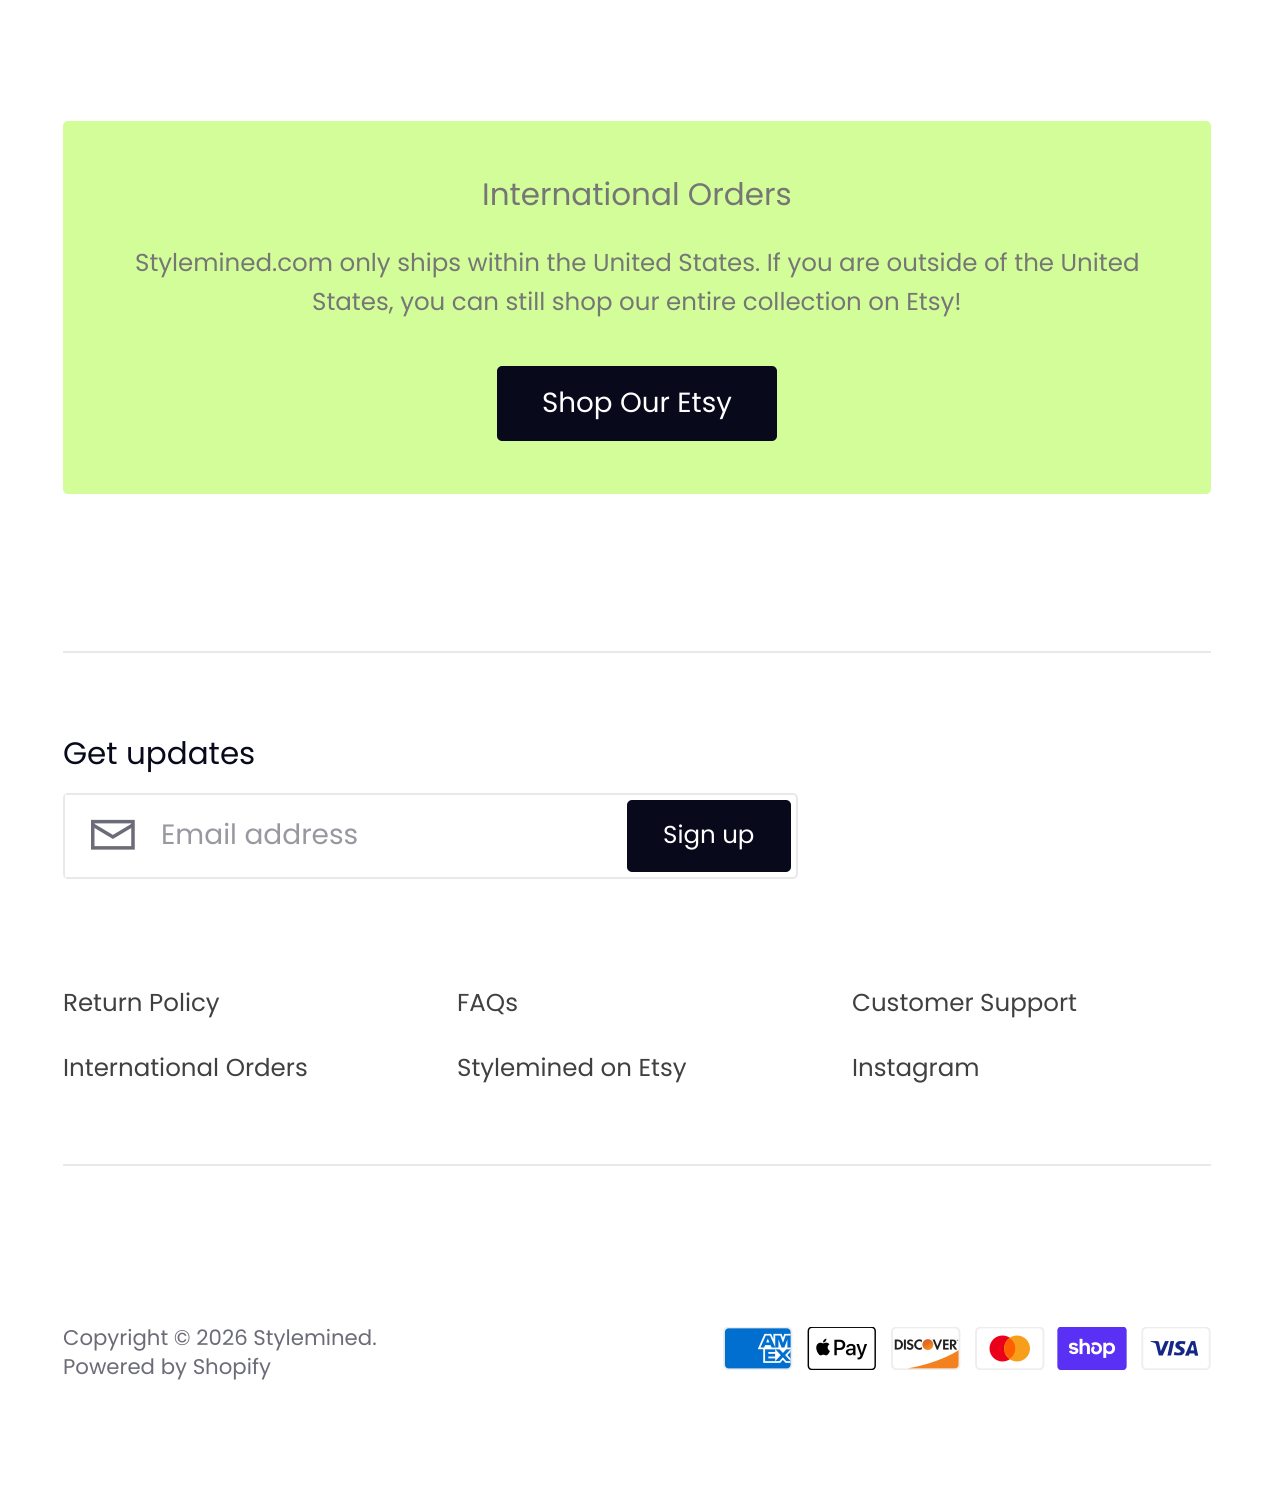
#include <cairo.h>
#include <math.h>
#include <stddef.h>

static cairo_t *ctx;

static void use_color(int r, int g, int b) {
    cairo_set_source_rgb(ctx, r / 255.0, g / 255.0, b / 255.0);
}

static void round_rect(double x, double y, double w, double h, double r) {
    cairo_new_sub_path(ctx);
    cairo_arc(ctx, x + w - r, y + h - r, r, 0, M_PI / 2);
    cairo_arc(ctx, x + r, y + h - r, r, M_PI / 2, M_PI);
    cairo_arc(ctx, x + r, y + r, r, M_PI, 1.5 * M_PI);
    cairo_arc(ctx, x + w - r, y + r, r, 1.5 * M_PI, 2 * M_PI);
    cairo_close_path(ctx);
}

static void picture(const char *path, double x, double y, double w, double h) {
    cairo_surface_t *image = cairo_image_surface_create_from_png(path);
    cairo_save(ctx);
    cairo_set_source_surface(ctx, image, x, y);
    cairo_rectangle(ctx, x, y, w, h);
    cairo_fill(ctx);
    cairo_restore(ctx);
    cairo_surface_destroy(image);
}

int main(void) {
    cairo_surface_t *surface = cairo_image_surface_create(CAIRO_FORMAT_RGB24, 1273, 1486);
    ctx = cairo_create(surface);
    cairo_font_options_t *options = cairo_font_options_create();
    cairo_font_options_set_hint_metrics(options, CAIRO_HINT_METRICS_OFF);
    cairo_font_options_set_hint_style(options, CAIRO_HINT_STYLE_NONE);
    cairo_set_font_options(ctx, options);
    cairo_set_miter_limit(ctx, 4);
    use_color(255, 255, 255);
    cairo_paint(ctx);
    use_color(210, 253, 152);
    round_rect(63, 121, 1148, 373, 5);
    cairo_fill(ctx);
    cairo_select_font_face(ctx, "Poppins", CAIRO_FONT_SLANT_NORMAL, CAIRO_FONT_WEIGHT_NORMAL);
    cairo_set_font_size(ctx, 31);
    use_color(118, 118, 118);
    cairo_move_to(ctx, 482, 205);
    cairo_show_text(ctx, "International Orders");
    cairo_set_font_size(ctx, 24.5);
    cairo_move_to(ctx, 135, 271);
    cairo_show_text(ctx, "Stylemined.com only ships within the United States. If you are outside of the United");
    cairo_move_to(ctx, 312, 310);
    cairo_show_text(ctx, "States, you can still shop our entire collection on Etsy!");
    use_color(8, 10, 28);
    round_rect(498, 367, 278, 73, 4);
    cairo_fill_preserve(ctx);
    cairo_stroke(ctx);
    cairo_set_font_size(ctx, 27.75);
    use_color(255, 255, 255);
    cairo_move_to(ctx, 542, 412);
    cairo_show_text(ctx, "Shop Our Etsy");
    use_color(233, 233, 235);
    cairo_rectangle(ctx, 63, 651, 1148, 2);
    cairo_fill(ctx);
    cairo_set_font_size(ctx, 31);
    use_color(8, 10, 28);
    cairo_move_to(ctx, 63, 764);
    cairo_show_text(ctx, "Get updates");
    round_rect(64, 794, 733, 84, 4);
    use_color(233, 233, 235);
    cairo_stroke(ctx);
    picture("img1.png", 91, 819, 44, 31);
    use_color(255, 255, 255);
    cairo_rectangle(ctx, 65, 795, 2, 82);
    cairo_fill(ctx);
    cairo_set_font_size(ctx, 28);
    use_color(151, 152, 160);
    cairo_move_to(ctx, 161, 844);
    cairo_show_text(ctx, "Email address");
    use_color(8, 10, 28);
    round_rect(628, 801, 162, 70, 4);
    cairo_fill_preserve(ctx);
    cairo_stroke(ctx);
    cairo_set_font_size(ctx, 24.5);
    use_color(255, 255, 255);
    cairo_move_to(ctx, 663, 843);
    cairo_show_text(ctx, "Sign up");
    use_color(64, 64, 64);
    cairo_move_to(ctx, 63, 1011);
    cairo_show_text(ctx, "Return Policy");
    cairo_move_to(ctx, 457, 1011);
    cairo_show_text(ctx, "FAQs");
    cairo_move_to(ctx, 852, 1011);
    cairo_show_text(ctx, "Customer Support");
    cairo_move_to(ctx, 63, 1076);
    cairo_show_text(ctx, "International Orders");
    cairo_move_to(ctx, 457, 1076);
    cairo_show_text(ctx, "Stylemined on Etsy");
    cairo_move_to(ctx, 852, 1076);
    cairo_show_text(ctx, "Instagram");
    use_color(233, 233, 235);
    cairo_rectangle(ctx, 63, 1164, 1148, 2);
    cairo_fill(ctx);
    cairo_set_font_size(ctx, 21.25);
    use_color(107, 108, 119);
    cairo_move_to(ctx, 63, 1345);
    cairo_show_text(ctx, "Copyright © 2026 Stylemined.");
    cairo_move_to(ctx, 63, 1374);
    cairo_show_text(ctx, "Powered by Shopify");
    picture("img2.png", 723, 1327, 70, 43);
    picture("img3.png", 807, 1327, 69, 43);
    picture("img4.png", 891, 1327, 70, 43);
    picture("img5.png", 975, 1327, 70, 43);
    picture("img6.png", 1057, 1327, 70, 43);
    picture("img7.png", 1141, 1327, 70, 43);
    cairo_surface_write_to_png(surface, "result.png");
    cairo_font_options_destroy(options);
    cairo_destroy(ctx);
    cairo_surface_destroy(surface);
    return 0;
}
